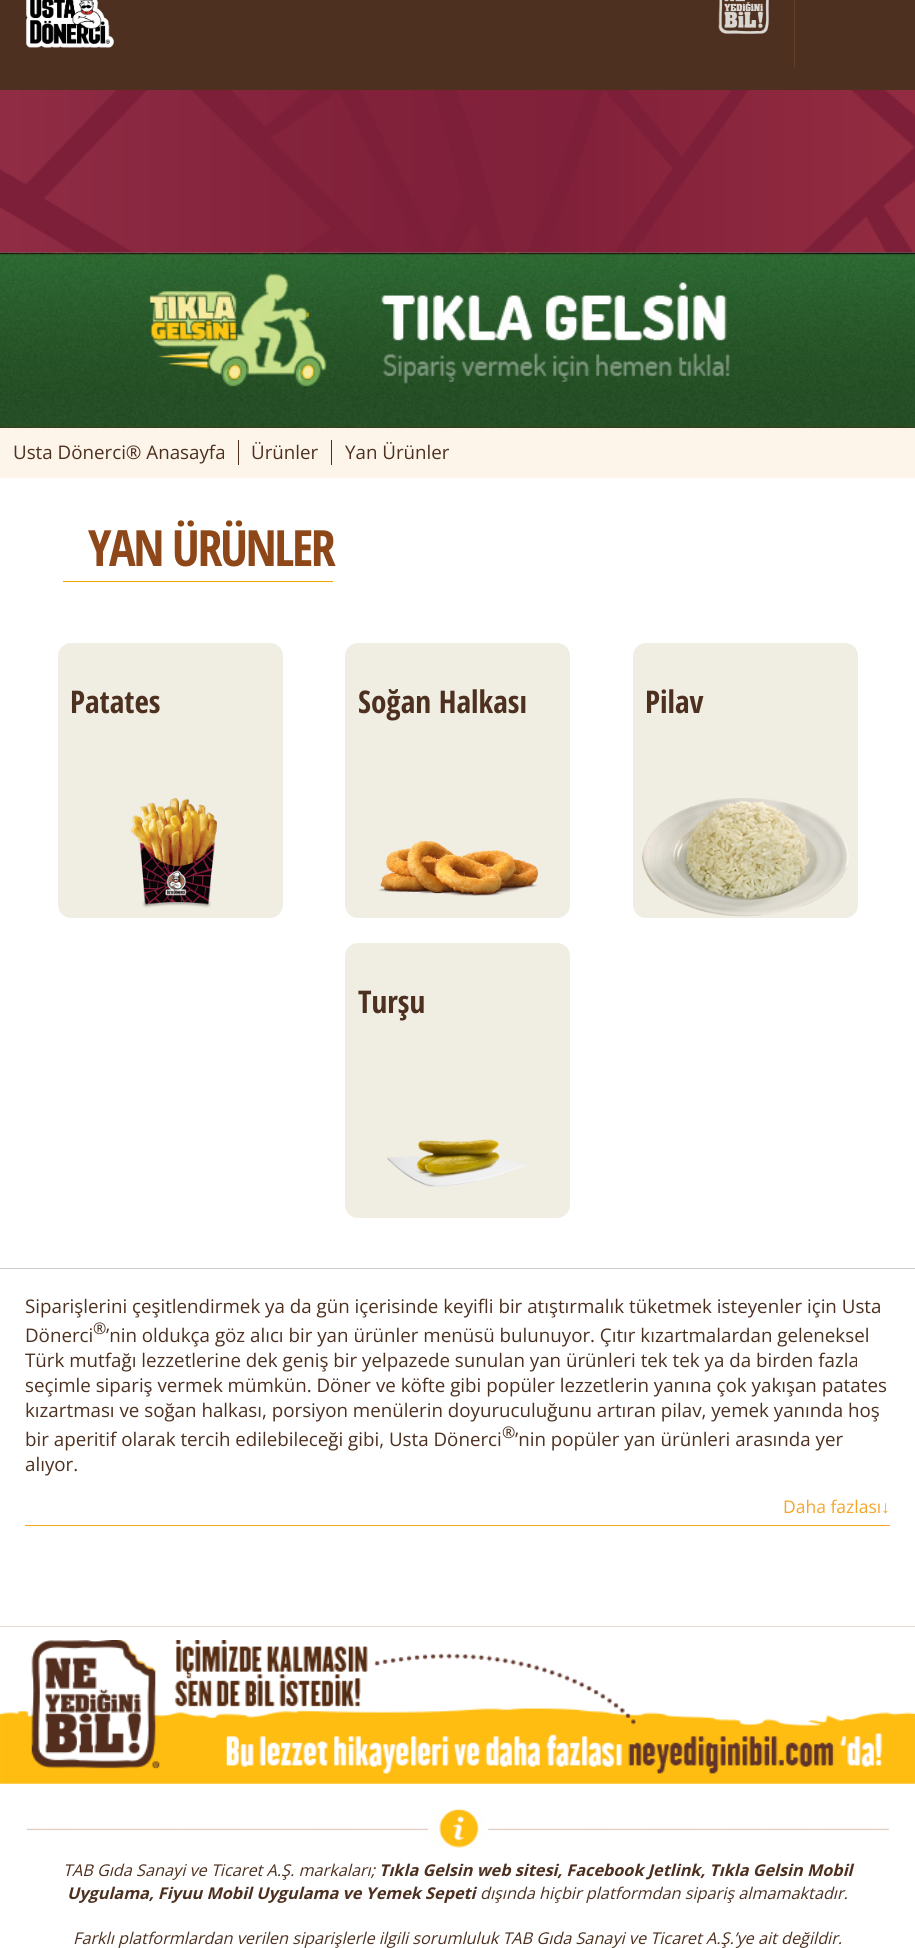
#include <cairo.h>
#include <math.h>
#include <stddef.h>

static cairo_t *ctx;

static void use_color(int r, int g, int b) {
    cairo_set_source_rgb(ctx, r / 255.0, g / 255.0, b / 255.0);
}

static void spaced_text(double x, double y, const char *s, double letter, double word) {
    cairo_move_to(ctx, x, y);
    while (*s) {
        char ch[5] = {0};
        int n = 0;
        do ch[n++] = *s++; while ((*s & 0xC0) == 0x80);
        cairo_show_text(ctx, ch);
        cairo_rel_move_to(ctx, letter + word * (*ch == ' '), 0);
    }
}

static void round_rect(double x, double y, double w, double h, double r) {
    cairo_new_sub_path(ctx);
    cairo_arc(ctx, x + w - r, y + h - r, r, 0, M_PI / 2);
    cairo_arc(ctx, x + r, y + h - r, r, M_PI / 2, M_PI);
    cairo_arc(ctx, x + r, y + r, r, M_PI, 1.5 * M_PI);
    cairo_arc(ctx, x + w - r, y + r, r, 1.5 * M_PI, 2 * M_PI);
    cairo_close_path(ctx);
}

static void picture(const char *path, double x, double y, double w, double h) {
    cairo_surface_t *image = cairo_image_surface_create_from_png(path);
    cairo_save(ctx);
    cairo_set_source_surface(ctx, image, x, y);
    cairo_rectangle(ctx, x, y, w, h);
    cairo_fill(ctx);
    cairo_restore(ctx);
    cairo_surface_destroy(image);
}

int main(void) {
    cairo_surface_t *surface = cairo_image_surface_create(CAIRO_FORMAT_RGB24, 915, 1948);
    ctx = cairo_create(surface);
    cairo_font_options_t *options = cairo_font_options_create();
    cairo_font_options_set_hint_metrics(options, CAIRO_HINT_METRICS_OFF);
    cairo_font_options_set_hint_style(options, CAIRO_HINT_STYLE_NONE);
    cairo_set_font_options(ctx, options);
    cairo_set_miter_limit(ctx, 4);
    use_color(255, 255, 255);
    cairo_paint(ctx);
    use_color(77, 48, 31);
    cairo_rectangle(ctx, 0, 0, 915, 90);
    cairo_fill(ctx);
    picture("img1.png", 26, 0, 88, 48);
    picture("img2.png", 718, 0, 51, 34);
    use_color(100, 62, 40);
    cairo_rectangle(ctx, 794, 0, 1, 68);
    cairo_fill(ctx);
    picture("img3.png", 0, 90, 915, 163);
    use_color(86, 42, 14);
    cairo_rectangle(ctx, 0, 427, 915, 1);
    cairo_fill(ctx);
    picture("img4.png", 0, 252, 915, 176);
    use_color(253, 244, 234);
    cairo_rectangle(ctx, 0, 428, 915, 50);
    cairo_fill(ctx);
    use_color(77, 48, 31);
    cairo_rectangle(ctx, 238, 440, 1, 25);
    cairo_fill(ctx);
    cairo_select_font_face(ctx, "Open Sans", CAIRO_FONT_SLANT_NORMAL, CAIRO_FONT_WEIGHT_NORMAL);
    cairo_set_font_size(ctx, 18.75);
    cairo_move_to(ctx, 13, 459);
    cairo_show_text(ctx, "Usta Dönerci® Anasayfa");
    cairo_rectangle(ctx, 331, 440, 1, 25);
    cairo_fill(ctx);
    cairo_move_to(ctx, 251, 459);
    cairo_show_text(ctx, "Ürünler");
    cairo_move_to(ctx, 345, 459);
    cairo_show_text(ctx, "Yan Ürünler");
    use_color(247, 166, 0);
    cairo_rectangle(ctx, 63, 581, 270, 1);
    cairo_fill(ctx);
    cairo_select_font_face(ctx, "Open Sans Condensed", CAIRO_FONT_SLANT_NORMAL, CAIRO_FONT_WEIGHT_BOLD);
    cairo_set_font_size(ctx, 50);
    use_color(142, 71, 25);
    spaced_text(88, 566, "YAN ÜRÜNLER", -2.5, 0);
    use_color(240, 237, 227);
    round_rect(58, 643, 225, 275, 13);
    cairo_fill(ctx);
    cairo_set_font_size(ctx, 31.25);
    use_color(77, 48, 31);
    cairo_move_to(ctx, 70, 713);
    cairo_show_text(ctx, "Patates");
    picture("img5.png", 130, 798, 87, 110);
    use_color(240, 237, 227);
    round_rect(345, 643, 225, 275, 13);
    cairo_fill(ctx);
    use_color(77, 48, 31);
    cairo_move_to(ctx, 358, 713);
    cairo_show_text(ctx, "Soğan Halkası");
    picture("img6.png", 378, 841, 160, 55);
    use_color(240, 237, 227);
    round_rect(633, 643, 225, 275, 13);
    cairo_fill(ctx);
    use_color(77, 48, 31);
    cairo_move_to(ctx, 645, 713);
    cairo_show_text(ctx, "Pilav");
    picture("img7.png", 641, 798, 208, 119);
    use_color(240, 237, 227);
    round_rect(345, 943, 225, 275, 13);
    cairo_fill(ctx);
    use_color(77, 48, 31);
    cairo_move_to(ctx, 358, 1013);
    cairo_show_text(ctx, "Turşu");
    picture("img8.png", 387, 1139, 140, 48);
    use_color(204, 204, 204);
    cairo_rectangle(ctx, 0, 1268, 915, 1);
    cairo_fill(ctx);
    cairo_select_font_face(ctx, "Open Sans", CAIRO_FONT_SLANT_NORMAL, CAIRO_FONT_WEIGHT_NORMAL);
    cairo_set_font_size(ctx, 18.75);
    use_color(77, 48, 31);
    cairo_move_to(ctx, 25, 1313);
    cairo_show_text(ctx, "Siparişlerini çeşitlendirmek ya da gün içerisinde keyifli bir atıştırmalık tüketmek isteyenler için Usta");
    cairo_move_to(ctx, 25, 1342);
    cairo_show_text(ctx, "Dönerci");
    cairo_set_font_size(ctx, 16);
    cairo_move_to(ctx, 93, 1334);
    cairo_show_text(ctx, "®");
    cairo_set_font_size(ctx, 18.75);
    cairo_move_to(ctx, 106, 1342);
    cairo_show_text(ctx, "’nin oldukça göz alıcı bir yan ürünler menüsü bulunuyor. Çıtır kızartmalardan geleneksel");
    cairo_move_to(ctx, 25, 1367);
    cairo_show_text(ctx, "Türk mutfağı lezzetlerine dek geniş bir yelpazede sunulan yan ürünleri tek tek ya da birden fazla");
    cairo_move_to(ctx, 25, 1392);
    cairo_show_text(ctx, "seçimle sipariş vermek mümkün. Döner ve köfte gibi popüler lezzetlerin yanına çok yakışan patates");
    cairo_move_to(ctx, 25, 1417);
    cairo_show_text(ctx, "kızartması ve soğan halkası, porsiyon menülerin doyuruculuğunu artıran pilav, yemek yanında hoş");
    cairo_move_to(ctx, 25, 1446);
    cairo_show_text(ctx, "bir aperitif olarak tercih edilebileceği gibi, Usta Dönerci");
    cairo_set_font_size(ctx, 16);
    cairo_move_to(ctx, 502, 1438);
    cairo_show_text(ctx, "®");
    cairo_set_font_size(ctx, 18.75);
    cairo_move_to(ctx, 515, 1446);
    cairo_show_text(ctx, "’nin popüler yan ürünleri arasında yer");
    cairo_move_to(ctx, 25, 1471);
    cairo_show_text(ctx, "alıyor.");
    use_color(245, 165, 40);
    cairo_rectangle(ctx, 25, 1525, 865, 1);
    cairo_fill(ctx);
    cairo_set_font_size(ctx, 17.5);
    cairo_move_to(ctx, 783, 1513);
    cairo_show_text(ctx, "Daha fazlası");
    cairo_select_font_face(ctx, "Liberation Serif", CAIRO_FONT_SLANT_NORMAL, CAIRO_FONT_WEIGHT_NORMAL);
    cairo_move_to(ctx, 881, 1513);
    cairo_show_text(ctx, "↓");
    use_color(232, 218, 209);
    cairo_rectangle(ctx, 0, 1626, 915, 1);
    cairo_fill(ctx);
    picture("img9.png", 0, 1640, 915, 144);
    picture("img10.png", 26, 1808, 863, 40);
    cairo_select_font_face(ctx, "Open Sans", CAIRO_FONT_SLANT_ITALIC, CAIRO_FONT_WEIGHT_NORMAL);
    cairo_set_font_size(ctx, 16.25);
    use_color(77, 48, 31);
    cairo_move_to(ctx, 63, 1876);
    cairo_show_text(ctx, "TAB Gıda Sanayi ve Ticaret A.Ş. markaları;");
    cairo_select_font_face(ctx, "Open Sans", CAIRO_FONT_SLANT_ITALIC, CAIRO_FONT_WEIGHT_BOLD);
    cairo_move_to(ctx, 379, 1876);
    cairo_show_text(ctx, "Tıkla Gelsin web sitesi, Facebook Jetlink, Tıkla Gelsin Mobil");
    cairo_move_to(ctx, 67, 1899);
    cairo_show_text(ctx, "Uygulama, Fiyuu Mobil Uygulama ve Yemek Sepeti");
    cairo_select_font_face(ctx, "Open Sans", CAIRO_FONT_SLANT_ITALIC, CAIRO_FONT_WEIGHT_NORMAL);
    cairo_move_to(ctx, 480, 1899);
    cairo_show_text(ctx, "dışında hiçbir platformdan sipariş almamaktadır.");
    cairo_move_to(ctx, 73, 1944);
    cairo_show_text(ctx, "Farklı platformlardan verilen siparişlerle ilgili sorumluluk TAB Gıda Sanayi ve Ticaret A.Ş.’ye ait değildir.");
    cairo_surface_write_to_png(surface, "result.png");
    cairo_font_options_destroy(options);
    cairo_destroy(ctx);
    cairo_surface_destroy(surface);
    return 0;
}
